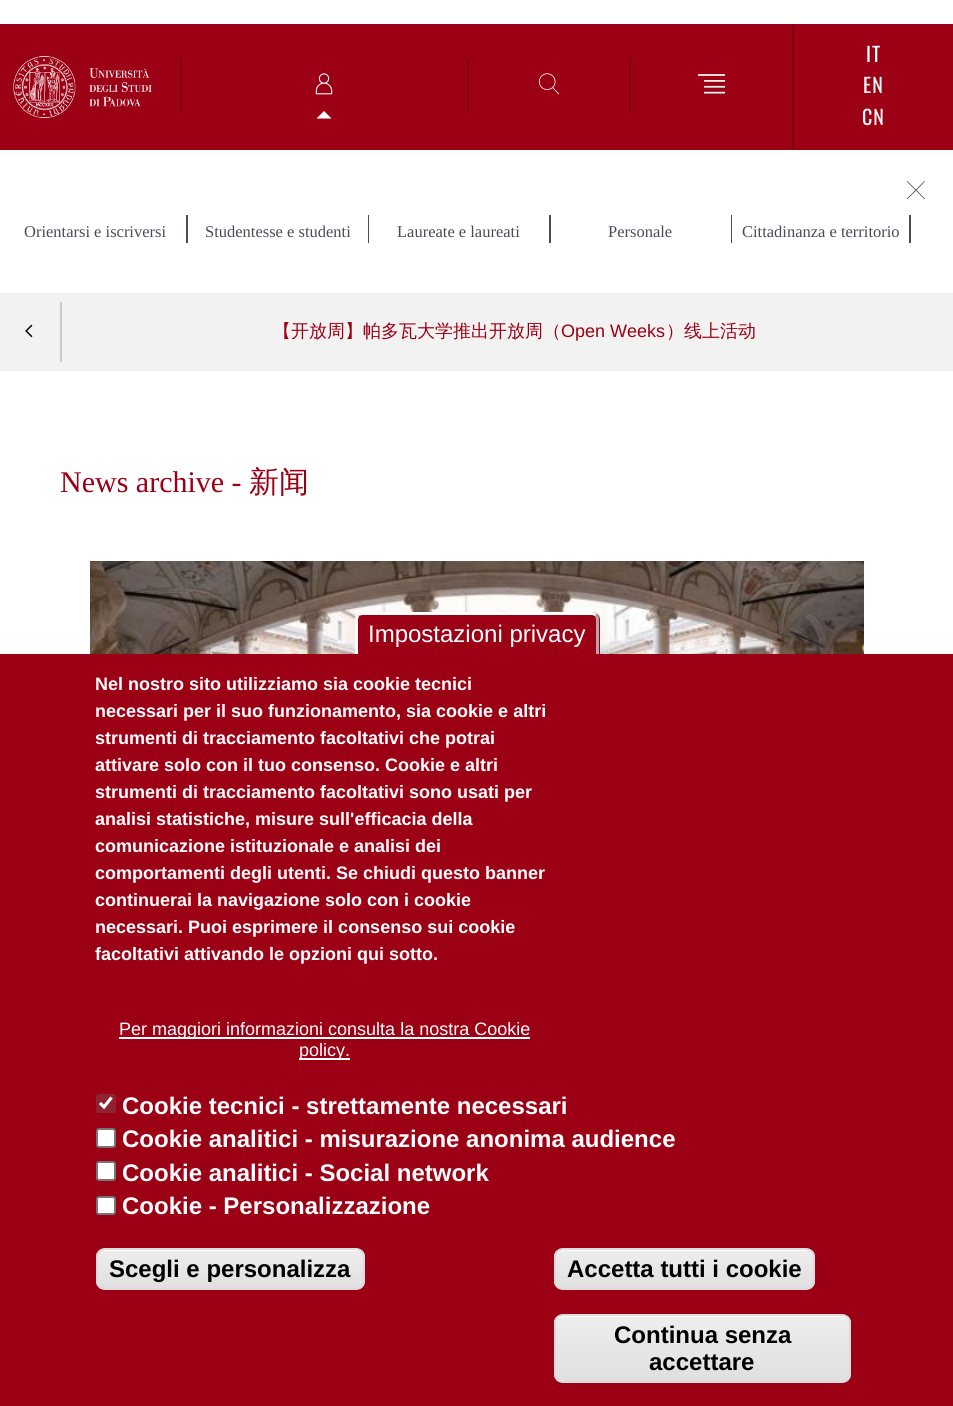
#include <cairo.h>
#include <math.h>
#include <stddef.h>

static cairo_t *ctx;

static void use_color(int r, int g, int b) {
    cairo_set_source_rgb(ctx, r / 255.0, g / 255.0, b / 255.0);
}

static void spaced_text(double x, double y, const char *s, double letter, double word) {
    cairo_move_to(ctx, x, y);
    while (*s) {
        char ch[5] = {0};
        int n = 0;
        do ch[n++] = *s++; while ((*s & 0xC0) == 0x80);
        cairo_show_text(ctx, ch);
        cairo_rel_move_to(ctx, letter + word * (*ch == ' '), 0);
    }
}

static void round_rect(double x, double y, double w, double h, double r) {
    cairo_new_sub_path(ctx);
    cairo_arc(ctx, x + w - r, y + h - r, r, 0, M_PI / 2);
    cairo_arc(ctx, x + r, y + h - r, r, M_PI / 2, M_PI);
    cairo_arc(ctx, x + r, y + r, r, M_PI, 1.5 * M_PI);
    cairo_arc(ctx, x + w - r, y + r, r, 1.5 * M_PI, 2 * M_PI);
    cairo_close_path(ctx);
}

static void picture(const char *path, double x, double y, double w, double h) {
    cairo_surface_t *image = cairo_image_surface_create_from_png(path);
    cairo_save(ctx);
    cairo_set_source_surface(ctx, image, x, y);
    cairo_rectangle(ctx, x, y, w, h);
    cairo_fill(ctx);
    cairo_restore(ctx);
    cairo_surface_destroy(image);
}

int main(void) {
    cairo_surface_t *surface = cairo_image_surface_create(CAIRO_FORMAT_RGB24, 953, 1406);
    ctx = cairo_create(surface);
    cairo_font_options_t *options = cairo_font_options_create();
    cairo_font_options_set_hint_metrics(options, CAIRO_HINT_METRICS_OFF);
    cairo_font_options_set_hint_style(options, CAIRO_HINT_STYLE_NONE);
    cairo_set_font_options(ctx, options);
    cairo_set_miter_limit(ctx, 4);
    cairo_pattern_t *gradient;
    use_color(255, 255, 255);
    cairo_paint(ctx);
    use_color(155, 0, 20);
    cairo_rectangle(ctx, 0, 24, 953, 126);
    cairo_fill(ctx);
    use_color(124, 0, 16);
    cairo_rectangle(ctx, 467, 59, 2, 55);
    cairo_fill(ctx);
    picture("img1.png", 538, 73, 22, 22);
    cairo_rectangle(ctx, 629, 59, 2, 55);
    cairo_fill(ctx);
    picture("img2.png", 697, 74, 29, 20);
    cairo_rectangle(ctx, 792, 24, 2, 126);
    cairo_fill(ctx);
    cairo_select_font_face(ctx, "Oswald", CAIRO_FONT_SLANT_NORMAL, CAIRO_FONT_WEIGHT_NORMAL);
    cairo_set_font_size(ctx, 20);
    use_color(255, 255, 255);
    spaced_text(866, 62, "IT", 1, 0);
    spaced_text(863, 93, "EN", 1, 0);
    spaced_text(862, 125, "CN", 1, 0);
    use_color(124, 0, 16);
    cairo_rectangle(ctx, 180, 59, 2, 55);
    cairo_fill(ctx);
    picture("img3.png", 315, 73, 18, 22);
    use_color(255, 255, 255);
    cairo_new_path(ctx);
    cairo_move_to(ctx, 331.5, 118.5);
    cairo_line_to(ctx, 316.5, 118.5);
    cairo_line_to(ctx, 324, 111);
    cairo_close_path(ctx);
    cairo_fill(ctx);
    picture("img4.png", 907, 181, 18, 18);
    cairo_select_font_face(ctx, "Liberation Serif", CAIRO_FONT_SLANT_NORMAL, CAIRO_FONT_WEIGHT_NORMAL);
    cairo_set_font_size(ctx, 16.5);
    use_color(72, 76, 87);
    cairo_move_to(ctx, 24, 237);
    cairo_show_text(ctx, "Orientarsi e iscriversi");
    cairo_rectangle(ctx, 186, 215, 2, 28);
    cairo_fill(ctx);
    cairo_move_to(ctx, 205, 237);
    cairo_show_text(ctx, "Studentesse e studenti");
    cairo_rectangle(ctx, 368, 215, 1, 28);
    cairo_fill(ctx);
    cairo_move_to(ctx, 397, 237);
    cairo_show_text(ctx, "Laureate e laureati");
    cairo_rectangle(ctx, 549, 215, 2, 28);
    cairo_fill(ctx);
    cairo_move_to(ctx, 608, 237);
    cairo_show_text(ctx, "Personale");
    cairo_rectangle(ctx, 909, 215, 2, 28);
    cairo_fill(ctx);
    cairo_rectangle(ctx, 731, 215, 1, 28);
    cairo_fill(ctx);
    cairo_move_to(ctx, 742, 237);
    cairo_show_text(ctx, "Cittadinanza e territorio");
    picture("img5.png", 13, 55, 139, 64);
    use_color(242, 242, 242);
    cairo_rectangle(ctx, 0, 293, 953, 78);
    cairo_fill(ctx);
    use_color(200, 202, 204);
    cairo_rectangle(ctx, 60, 302, 2, 60);
    cairo_fill(ctx);
    picture("img6.png", 25, 324, 8, 14);
    cairo_select_font_face(ctx, "WenQuanYi Zen Hei Medium", CAIRO_FONT_SLANT_NORMAL, CAIRO_FONT_WEIGHT_NORMAL);
    cairo_set_font_size(ctx, 18);
    use_color(155, 0, 20);
    cairo_move_to(ctx, 273, 337);
    cairo_show_text(ctx, "【开放周】帕多瓦大学推出开放周（");
    cairo_select_font_face(ctx, "Liberation Sans", CAIRO_FONT_SLANT_NORMAL, CAIRO_FONT_WEIGHT_NORMAL);
    cairo_move_to(ctx, 561, 337);
    cairo_show_text(ctx, "Open Weeks");
    cairo_select_font_face(ctx, "WenQuanYi Zen Hei Medium", CAIRO_FONT_SLANT_NORMAL, CAIRO_FONT_WEIGHT_NORMAL);
    cairo_move_to(ctx, 666, 337);
    cairo_show_text(ctx, "）线上活动");
    cairo_select_font_face(ctx, "Liberation Serif", CAIRO_FONT_SLANT_NORMAL, CAIRO_FONT_WEIGHT_NORMAL);
    cairo_set_font_size(ctx, 30);
    cairo_move_to(ctx, 60, 492);
    cairo_show_text(ctx, "News archive -");
    cairo_select_font_face(ctx, "WenQuanYi Zen Hei Medium", CAIRO_FONT_SLANT_NORMAL, CAIRO_FONT_WEIGHT_NORMAL);
    cairo_move_to(ctx, 249, 492);
    cairo_show_text(ctx, "新闻");
    picture("img7.png", 90, 561, 774, 93);
    cairo_rectangle(ctx, 0, 654, 953, 752);
    cairo_fill(ctx);
    cairo_new_path(ctx);
    cairo_move_to(ctx, 364, 612);
    cairo_line_to(ctx, 592, 612);
    cairo_curve_to(ctx, 596.5, 612, 600, 615.5, 600, 620);
    cairo_line_to(ctx, 600, 654);
    cairo_line_to(ctx, 356, 654);
    cairo_line_to(ctx, 356, 620);
    cairo_curve_to(ctx, 356, 615.5, 359.5, 612, 364, 612);
    cairo_close_path(ctx);
    cairo_fill(ctx);
    use_color(255, 255, 255);
    cairo_new_path(ctx);
    cairo_move_to(ctx, 362, 612);
    cairo_line_to(ctx, 592, 612);
    cairo_curve_to(ctx, 594, 612, 596, 613, 597, 614);
    cairo_line_to(ctx, 595, 616);
    cairo_curve_to(ctx, 594, 616, 593, 615, 592, 615);
    cairo_line_to(ctx, 362, 615);
    cairo_line_to(ctx, 359, 616);
    cairo_line_to(ctx, 357, 614);
    cairo_curve_to(ctx, 358, 613, 360, 612, 362, 612);
    cairo_close_path(ctx);
    cairo_fill(ctx);
    use_color(170, 170, 170);
    cairo_new_path(ctx);
    cairo_move_to(ctx, 596, 654);
    cairo_line_to(ctx, 599, 654);
    cairo_line_to(ctx, 599, 620);
    cairo_curve_to(ctx, 599, 617.5, 598.5, 615.5, 597, 614);
    cairo_line_to(ctx, 595, 616.5);
    cairo_curve_to(ctx, 595.5, 617.5, 596, 618.5, 596, 620);
    cairo_close_path(ctx);
    cairo_fill(ctx);
    use_color(255, 255, 255);
    cairo_new_path(ctx);
    cairo_move_to(ctx, 355, 654);
    cairo_line_to(ctx, 358, 654);
    cairo_line_to(ctx, 358, 620);
    cairo_curve_to(ctx, 358, 618.5, 358.5, 617.5, 359, 616.5);
    cairo_line_to(ctx, 357, 614);
    cairo_curve_to(ctx, 355.5, 615.5, 355, 617.5, 355, 620);
    cairo_close_path(ctx);
    cairo_fill(ctx);
    cairo_select_font_face(ctx, "Liberation Sans", CAIRO_FONT_SLANT_NORMAL, CAIRO_FONT_WEIGHT_NORMAL);
    cairo_set_font_size(ctx, 24);
    cairo_move_to(ctx, 368, 642);
    cairo_show_text(ctx, "Impostazioni privacy");
    cairo_select_font_face(ctx, "Liberation Sans", CAIRO_FONT_SLANT_NORMAL, CAIRO_FONT_WEIGHT_BOLD);
    cairo_set_font_size(ctx, 18);
    cairo_move_to(ctx, 95, 690);
    cairo_show_text(ctx, "Nel nostro sito utilizziamo sia cookie tecnici");
    cairo_move_to(ctx, 95, 717);
    cairo_show_text(ctx, "necessari per il suo funzionamento, sia cookie e altri");
    cairo_move_to(ctx, 95, 744);
    cairo_show_text(ctx, "strumenti di tracciamento facoltativi che potrai");
    cairo_move_to(ctx, 95, 771);
    cairo_show_text(ctx, "attivare solo con il tuo consenso. Cookie e altri");
    cairo_move_to(ctx, 95, 798);
    cairo_show_text(ctx, "strumenti di tracciamento facoltativi sono usati per");
    cairo_move_to(ctx, 95, 825);
    cairo_show_text(ctx, "analisi statistiche, misure sull'efficacia della");
    cairo_move_to(ctx, 95, 852);
    cairo_show_text(ctx, "comunicazione istituzionale e analisi dei");
    cairo_move_to(ctx, 95, 879);
    cairo_show_text(ctx, "comportamenti degli utenti. Se chiudi questo banner");
    cairo_move_to(ctx, 95, 906);
    cairo_show_text(ctx, "continuerai la navigazione solo con i cookie");
    cairo_move_to(ctx, 95, 933);
    cairo_show_text(ctx, "necessari. Puoi esprimere il consenso sui cookie");
    cairo_move_to(ctx, 95, 960);
    cairo_show_text(ctx, "facoltativi attivando le opzioni qui sotto.");
    cairo_rectangle(ctx, 119, 1037, 411, 2);
    cairo_fill(ctx);
    cairo_select_font_face(ctx, "Liberation Sans", CAIRO_FONT_SLANT_NORMAL, CAIRO_FONT_WEIGHT_NORMAL);
    cairo_move_to(ctx, 119, 1035);
    cairo_show_text(ctx, "Per maggiori informazioni consulta la nostra Cookie");
    cairo_rectangle(ctx, 299, 1058, 51, 2);
    cairo_fill(ctx);
    cairo_move_to(ctx, 299, 1056);
    cairo_show_text(ctx, "policy.");
    use_color(144, 35, 49);
    round_rect(96, 1094, 20, 19, 3);
    cairo_fill(ctx);
    cairo_new_path(ctx);
    cairo_move_to(ctx, 100, 1103);
    cairo_line_to(ctx, 104, 1107);
    cairo_line_to(ctx, 111.5, 1097.5);
    use_color(255, 255, 255);
    cairo_set_line_width(ctx, 3.1);
    cairo_stroke(ctx);
    cairo_select_font_face(ctx, "Liberation Sans", CAIRO_FONT_SLANT_NORMAL, CAIRO_FONT_WEIGHT_BOLD);
    cairo_set_font_size(ctx, 24);
    cairo_move_to(ctx, 122, 1114);
    cairo_show_text(ctx, "Cookie tecnici - strettamente necessari");
    round_rect(97, 1129, 18, 18, 2);
    cairo_fill_preserve(ctx);
    use_color(118, 118, 118);
    cairo_set_line_width(ctx, 2);
    cairo_stroke(ctx);
    use_color(255, 255, 255);
    cairo_move_to(ctx, 122, 1147);
    cairo_show_text(ctx, "Cookie analitici - misurazione anonima audience");
    round_rect(97, 1162, 18, 18, 2);
    cairo_fill_preserve(ctx);
    use_color(118, 118, 118);
    cairo_stroke(ctx);
    use_color(255, 255, 255);
    cairo_move_to(ctx, 122, 1181);
    cairo_show_text(ctx, "Cookie analitici - Social network");
    round_rect(97, 1197, 18, 17, 2);
    cairo_fill_preserve(ctx);
    use_color(118, 118, 118);
    cairo_stroke(ctx);
    use_color(255, 255, 255);
    cairo_move_to(ctx, 122, 1214);
    cairo_show_text(ctx, "Cookie - Personalizzazione");
    cairo_save(ctx);
    round_rect(96, 1248, 269, 42, 9);
    cairo_clip(ctx);
    gradient = cairo_pattern_create_linear(230, 1250, 230, 1289);
    cairo_pattern_add_color_stop_rgba(gradient, 0.05, 0.929, 0.929, 0.929, 1);
    cairo_pattern_add_color_stop_rgba(gradient, 1, 0.875, 0.875, 0.875, 1);
    cairo_set_source(ctx, gradient);
    cairo_pattern_destroy(gradient);
    cairo_rectangle(ctx, 96, 1250, 269, 39);
    cairo_fill(ctx);
    cairo_restore(ctx);
    cairo_new_path(ctx);
    cairo_move_to(ctx, 105, 1251);
    cairo_line_to(ctx, 356, 1251);
    cairo_curve_to(ctx, 360, 1251, 363, 1254, 363, 1258);
    cairo_curve_to(ctx, 363, 1254, 359, 1250, 355, 1250);
    cairo_line_to(ctx, 106, 1250);
    cairo_curve_to(ctx, 102, 1250, 98, 1254, 98, 1258);
    cairo_curve_to(ctx, 98, 1254, 101, 1251, 105, 1251);
    cairo_close_path(ctx);
    cairo_fill(ctx);
    round_rect(97, 1249, 267, 40, 8);
    use_color(220, 220, 220);
    cairo_stroke(ctx);
    use_color(0, 0, 0);
    cairo_move_to(ctx, 109, 1277);
    cairo_show_text(ctx, "Scegli e personalizza");
    cairo_save(ctx);
    round_rect(554, 1248, 261, 42, 9);
    cairo_clip(ctx);
    gradient = cairo_pattern_create_linear(684, 1250, 684, 1289);
    cairo_pattern_add_color_stop_rgba(gradient, 0.05, 0.929, 0.929, 0.929, 1);
    cairo_pattern_add_color_stop_rgba(gradient, 1, 0.875, 0.875, 0.875, 1);
    cairo_set_source(ctx, gradient);
    cairo_pattern_destroy(gradient);
    cairo_rectangle(ctx, 554, 1250, 261, 39);
    cairo_fill(ctx);
    cairo_restore(ctx);
    use_color(255, 255, 255);
    cairo_new_path(ctx);
    cairo_move_to(ctx, 562, 1251);
    cairo_line_to(ctx, 806, 1251);
    cairo_curve_to(ctx, 810, 1251, 813, 1254, 813, 1258);
    cairo_curve_to(ctx, 813, 1254, 809, 1250, 805, 1250);
    cairo_line_to(ctx, 563, 1250);
    cairo_curve_to(ctx, 559, 1250, 555, 1254, 555, 1258);
    cairo_curve_to(ctx, 555, 1254, 558, 1251, 562, 1251);
    cairo_close_path(ctx);
    cairo_fill(ctx);
    round_rect(555, 1249, 259, 40, 8);
    use_color(220, 220, 220);
    cairo_stroke(ctx);
    use_color(0, 0, 0);
    cairo_move_to(ctx, 567, 1277);
    cairo_show_text(ctx, "Accetta tutti i cookie");
    cairo_save(ctx);
    round_rect(554, 1314, 297, 69, 9);
    cairo_clip(ctx);
    gradient = cairo_pattern_create_linear(702, 1316, 702, 1382);
    cairo_pattern_add_color_stop_rgba(gradient, 0.05, 0.929, 0.929, 0.929, 1);
    cairo_pattern_add_color_stop_rgba(gradient, 1, 0.875, 0.875, 0.875, 1);
    cairo_set_source(ctx, gradient);
    cairo_pattern_destroy(gradient);
    cairo_rectangle(ctx, 554, 1316, 297, 66);
    cairo_fill(ctx);
    cairo_restore(ctx);
    use_color(255, 255, 255);
    cairo_new_path(ctx);
    cairo_move_to(ctx, 562, 1317);
    cairo_line_to(ctx, 842, 1317);
    cairo_curve_to(ctx, 846, 1317, 849, 1320, 849, 1324);
    cairo_curve_to(ctx, 849, 1320, 845, 1316, 841, 1316);
    cairo_line_to(ctx, 563, 1316);
    cairo_curve_to(ctx, 559, 1316, 555, 1320, 555, 1324);
    cairo_curve_to(ctx, 555, 1320, 558, 1317, 562, 1317);
    cairo_close_path(ctx);
    cairo_fill(ctx);
    round_rect(555, 1315, 295, 67, 8);
    use_color(220, 220, 220);
    cairo_stroke(ctx);
    use_color(0, 0, 0);
    cairo_move_to(ctx, 614, 1343);
    cairo_show_text(ctx, "Continua senza");
    cairo_move_to(ctx, 649, 1370);
    cairo_show_text(ctx, "accettare");
    cairo_surface_write_to_png(surface, "result.png");
    cairo_font_options_destroy(options);
    cairo_destroy(ctx);
    cairo_surface_destroy(surface);
    return 0;
}
